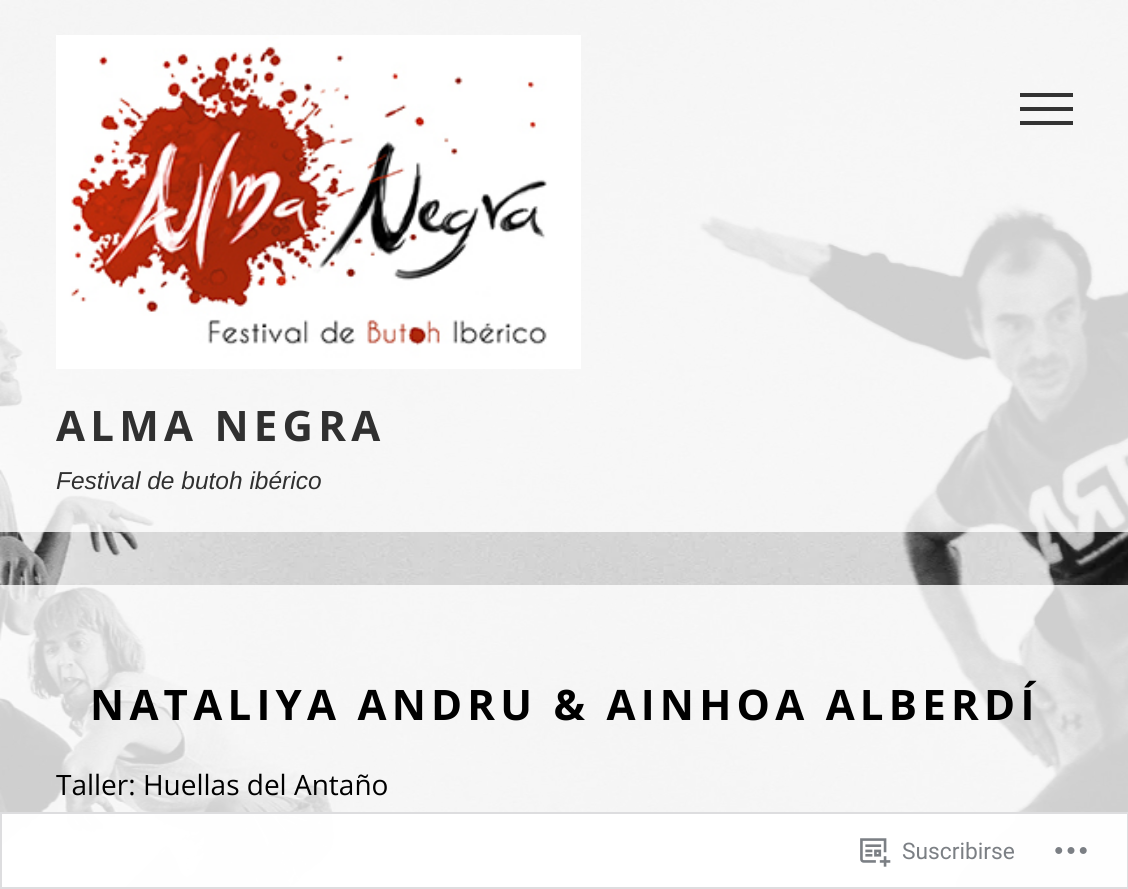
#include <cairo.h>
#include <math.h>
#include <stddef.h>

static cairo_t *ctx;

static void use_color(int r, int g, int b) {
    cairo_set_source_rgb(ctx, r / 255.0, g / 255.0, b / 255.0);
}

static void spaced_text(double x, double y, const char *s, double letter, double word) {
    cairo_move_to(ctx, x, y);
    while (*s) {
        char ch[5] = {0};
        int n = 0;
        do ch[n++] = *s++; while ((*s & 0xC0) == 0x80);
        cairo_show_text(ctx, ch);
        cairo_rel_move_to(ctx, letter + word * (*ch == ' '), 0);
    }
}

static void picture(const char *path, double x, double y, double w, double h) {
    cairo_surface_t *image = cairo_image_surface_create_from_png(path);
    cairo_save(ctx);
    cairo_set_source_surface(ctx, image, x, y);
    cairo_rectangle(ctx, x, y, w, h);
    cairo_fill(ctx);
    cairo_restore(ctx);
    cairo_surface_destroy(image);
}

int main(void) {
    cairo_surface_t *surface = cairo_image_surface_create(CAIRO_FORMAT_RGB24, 1128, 889);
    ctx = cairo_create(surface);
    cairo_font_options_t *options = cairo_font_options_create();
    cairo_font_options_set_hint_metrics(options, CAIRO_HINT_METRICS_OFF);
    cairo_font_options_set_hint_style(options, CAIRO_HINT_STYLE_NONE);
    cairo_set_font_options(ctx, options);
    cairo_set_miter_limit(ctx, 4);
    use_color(255, 255, 255);
    cairo_paint(ctx);
    picture("img1.png", 0, 0, 1128, 887);
    cairo_set_source_rgba(ctx, 1, 1, 1, 0.8);
    cairo_rectangle(ctx, 0, 0, 1128, 532);
    cairo_fill(ctx);
    use_color(51, 51, 51);
    cairo_rectangle(ctx, 1020, 93, 53, 4);
    cairo_fill(ctx);
    cairo_rectangle(ctx, 1020, 107, 53, 4);
    cairo_fill(ctx);
    cairo_rectangle(ctx, 1020, 121, 53, 4);
    cairo_fill(ctx);
    picture("img2.png", 56, 35, 525, 334);
    cairo_select_font_face(ctx, "Open Sans", CAIRO_FONT_SLANT_NORMAL, CAIRO_FONT_WEIGHT_BOLD);
    cairo_set_font_size(ctx, 42);
    use_color(48, 48, 48);
    spaced_text(56, 441, "ALMA NEGRA", 5.25, 0);
    cairo_select_font_face(ctx, "Liberation Sans", CAIRO_FONT_SLANT_ITALIC, CAIRO_FONT_WEIGHT_NORMAL);
    cairo_set_font_size(ctx, 24.5);
    cairo_move_to(ctx, 56, 489);
    cairo_show_text(ctx, "Festival de butoh ibérico");
    cairo_set_source_rgba(ctx, 1, 1, 1, 0.8);
    cairo_rectangle(ctx, 0, 585, 1128, 302);
    cairo_fill(ctx);
    cairo_select_font_face(ctx, "Open Sans", CAIRO_FONT_SLANT_NORMAL, CAIRO_FONT_WEIGHT_BOLD);
    cairo_set_font_size(ctx, 42);
    use_color(0, 0, 0);
    spaced_text(90, 720, "NATALIYA ANDRU & AINHOA ALBERDÍ", 5.25, 0);
    cairo_select_font_face(ctx, "Open Sans", CAIRO_FONT_SLANT_NORMAL, CAIRO_FONT_WEIGHT_NORMAL);
    cairo_set_font_size(ctx, 28);
    cairo_move_to(ctx, 56, 795);
    cairo_show_text(ctx, "Taller: Huellas del Antaño");
    cairo_set_source_rgba(ctx, 1, 1, 1, 0.98);
    cairo_rectangle(ctx, 1, 813, 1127, 75);
    cairo_fill_preserve(ctx);
    use_color(221, 221, 223);
    cairo_stroke(ctx);
    picture("img3.png", 860, 838, 31, 29);
    cairo_select_font_face(ctx, "Roboto", CAIRO_FONT_SLANT_NORMAL, CAIRO_FONT_WEIGHT_NORMAL);
    cairo_set_font_size(ctx, 22.75);
    use_color(123, 127, 132);
    cairo_move_to(ctx, 902, 859);
    cairo_show_text(ctx, "Suscribirse");
    picture("img4.png", 1055, 847, 32, 7);
    cairo_surface_write_to_png(surface, "result.png");
    cairo_font_options_destroy(options);
    cairo_destroy(ctx);
    cairo_surface_destroy(surface);
    return 0;
}
